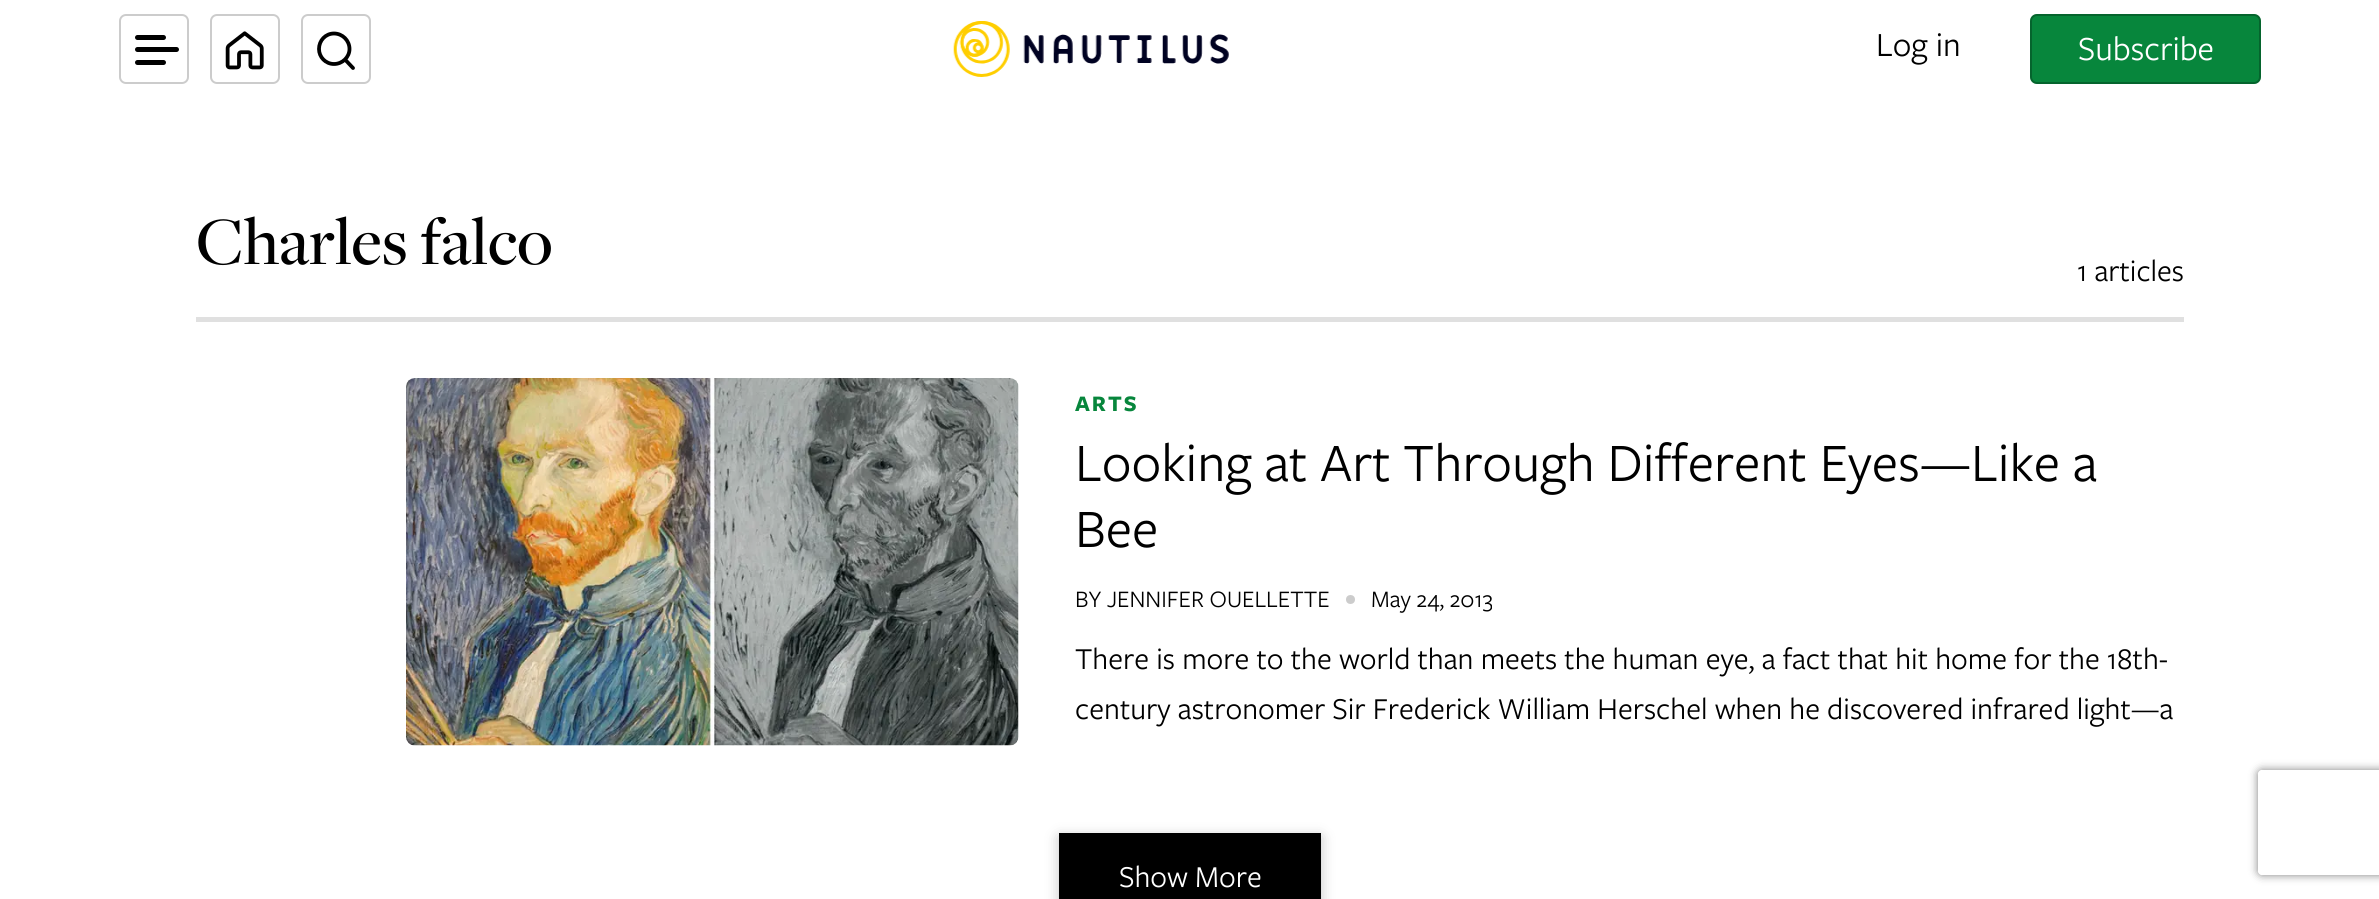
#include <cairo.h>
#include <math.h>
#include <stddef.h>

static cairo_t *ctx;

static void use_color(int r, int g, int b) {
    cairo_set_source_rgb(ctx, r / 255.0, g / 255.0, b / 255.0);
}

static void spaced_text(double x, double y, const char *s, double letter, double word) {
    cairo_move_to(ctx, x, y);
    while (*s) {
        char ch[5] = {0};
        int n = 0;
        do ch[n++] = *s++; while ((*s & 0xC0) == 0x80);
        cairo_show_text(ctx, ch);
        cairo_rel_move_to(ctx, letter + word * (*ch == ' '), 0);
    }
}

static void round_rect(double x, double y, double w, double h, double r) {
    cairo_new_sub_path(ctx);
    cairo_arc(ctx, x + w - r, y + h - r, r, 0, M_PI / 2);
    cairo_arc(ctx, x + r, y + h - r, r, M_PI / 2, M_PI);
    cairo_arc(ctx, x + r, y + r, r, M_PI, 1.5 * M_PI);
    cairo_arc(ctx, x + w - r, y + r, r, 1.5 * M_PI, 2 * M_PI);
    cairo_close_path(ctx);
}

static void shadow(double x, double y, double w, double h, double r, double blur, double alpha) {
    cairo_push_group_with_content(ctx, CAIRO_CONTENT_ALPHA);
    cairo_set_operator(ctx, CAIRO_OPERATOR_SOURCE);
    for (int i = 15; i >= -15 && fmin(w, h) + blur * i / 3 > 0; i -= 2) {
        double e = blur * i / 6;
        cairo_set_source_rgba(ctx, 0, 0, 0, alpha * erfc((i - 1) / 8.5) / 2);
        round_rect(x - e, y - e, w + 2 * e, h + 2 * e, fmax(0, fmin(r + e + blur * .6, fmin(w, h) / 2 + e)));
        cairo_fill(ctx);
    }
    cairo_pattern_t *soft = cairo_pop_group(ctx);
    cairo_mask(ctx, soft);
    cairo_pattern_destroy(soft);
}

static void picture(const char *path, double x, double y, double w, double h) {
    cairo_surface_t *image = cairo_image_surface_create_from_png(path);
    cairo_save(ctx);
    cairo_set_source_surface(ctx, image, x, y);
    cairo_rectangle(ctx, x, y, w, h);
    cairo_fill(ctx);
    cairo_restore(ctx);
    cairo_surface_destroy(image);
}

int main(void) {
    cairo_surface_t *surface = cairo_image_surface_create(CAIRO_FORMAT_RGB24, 2379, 899);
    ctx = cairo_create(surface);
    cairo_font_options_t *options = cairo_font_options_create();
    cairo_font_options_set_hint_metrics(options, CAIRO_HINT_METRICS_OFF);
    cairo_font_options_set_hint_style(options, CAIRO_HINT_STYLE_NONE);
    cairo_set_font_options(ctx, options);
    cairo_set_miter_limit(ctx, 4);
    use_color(255, 255, 255);
    cairo_paint(ctx);
    round_rect(120, 15, 68, 68, 6);
    use_color(204, 204, 204);
    cairo_stroke(ctx);
    use_color(0, 0, 0);
    round_rect(135, 35, 31, 5, 2.5);
    cairo_fill(ctx);
    round_rect(135, 47, 44, 5, 2.5);
    cairo_fill(ctx);
    round_rect(135, 60, 31, 5, 2.5);
    cairo_fill(ctx);
    round_rect(211, 15, 68, 68, 6);
    use_color(204, 204, 204);
    cairo_stroke(ctx);
    picture("img1.png", 225, 31, 39, 39);
    round_rect(302, 15, 68, 68, 6);
    cairo_stroke(ctx);
    cairo_new_path(ctx);
    cairo_move_to(ctx, 334, 64);
    cairo_curve_to(ctx, 342.5, 64, 349.5, 57, 349.5, 49);
    cairo_curve_to(ctx, 349.5, 40.5, 342.5, 33.5, 334, 33.5);
    cairo_curve_to(ctx, 325.5, 33.5, 319, 40.5, 319, 49);
    cairo_curve_to(ctx, 319, 57, 325.5, 64, 334, 64);
    cairo_close_path(ctx);
    cairo_move_to(ctx, 353, 68);
    cairo_line_to(ctx, 345, 59.5);
    use_color(0, 0, 0);
    cairo_set_line_width(ctx, 3.8);
    cairo_set_line_cap(ctx, CAIRO_LINE_CAP_ROUND);
    cairo_set_line_join(ctx, CAIRO_LINE_JOIN_ROUND);
    cairo_stroke(ctx);
    picture("img2.png", 953, 21, 276, 56);
    cairo_select_font_face(ctx, "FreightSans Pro", CAIRO_FONT_SLANT_NORMAL, CAIRO_FONT_WEIGHT_NORMAL);
    cairo_set_font_size(ctx, 35);
    cairo_move_to(ctx, 1876, 56);
    cairo_show_text(ctx, "Log in");
    use_color(7, 134, 60);
    round_rect(2030, 14, 231, 70, 7);
    cairo_fill(ctx);
    round_rect(2031, 15, 229, 68, 6);
    cairo_set_source_rgba(ctx, 0, 0, 0, 0.25);
    cairo_set_line_width(ctx, 2);
    cairo_set_line_cap(ctx, CAIRO_LINE_CAP_BUTT);
    cairo_set_line_join(ctx, CAIRO_LINE_JOIN_MITER);
    cairo_stroke(ctx);
    use_color(255, 255, 255);
    cairo_move_to(ctx, 2078, 60);
    cairo_show_text(ctx, "Subscribe");
    use_color(224, 224, 224);
    cairo_rectangle(ctx, 196, 317, 1988, 5);
    cairo_fill(ctx);
    cairo_select_font_face(ctx, "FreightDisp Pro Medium", CAIRO_FONT_SLANT_NORMAL, CAIRO_FONT_WEIGHT_NORMAL);
    cairo_set_font_size(ctx, 70);
    use_color(0, 0, 0);
    cairo_move_to(ctx, 196, 264);
    cairo_show_text(ctx, "Charles falco");
    cairo_select_font_face(ctx, "FreightSans Pro", CAIRO_FONT_SLANT_NORMAL, CAIRO_FONT_WEIGHT_NORMAL);
    cairo_set_font_size(ctx, 31.5);
    cairo_move_to(ctx, 2077, 281);
    cairo_show_text(ctx, "1 articles");
    picture("img3.png", 406, 378, 613, 368);
    cairo_select_font_face(ctx, "FreightSans Pro", CAIRO_FONT_SLANT_NORMAL, CAIRO_FONT_WEIGHT_BOLD);
    cairo_set_font_size(ctx, 23);
    use_color(7, 134, 60);
    spaced_text(1075, 411, "ARTS", 2, 0);
    cairo_select_font_face(ctx, "FreightSans Pro", CAIRO_FONT_SLANT_NORMAL, CAIRO_FONT_WEIGHT_NORMAL);
    cairo_set_font_size(ctx, 56);
    use_color(0, 0, 0);
    cairo_move_to(ctx, 1075, 481);
    cairo_show_text(ctx, "Looking at Art Through Different Eyes—Like a");
    cairo_move_to(ctx, 1075, 547);
    cairo_show_text(ctx, "Bee");
    cairo_set_font_size(ctx, 24.5);
    cairo_move_to(ctx, 1075, 607);
    cairo_show_text(ctx, "BY JENNIFER OUELLETTE");
    use_color(204, 204, 204);
    cairo_new_path(ctx);
    cairo_arc(ctx, 1350.5, 599.5, 4.5, 0, 2 * M_PI);
    cairo_fill(ctx);
    use_color(0, 0, 0);
    cairo_move_to(ctx, 1371, 607);
    cairo_show_text(ctx, "May 24, 2013");
    cairo_set_font_size(ctx, 31.5);
    cairo_move_to(ctx, 1075, 669);
    cairo_show_text(ctx, "There is more to the world than meets the human eye, a fact that hit home for the 18th-");
    cairo_move_to(ctx, 1075, 719);
    cairo_show_text(ctx, "century astronomer Sir Frederick William Herschel when he discovered infrared light—a");
    use_color(0, 0, 0);
    shadow(1059, 837, 262, 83, 0, 7, 0.24);
    use_color(0, 0, 0);
    cairo_rectangle(ctx, 1059, 833, 262, 66);
    cairo_fill(ctx);
    use_color(255, 255, 255);
    cairo_move_to(ctx, 1119, 887);
    cairo_show_text(ctx, "Show More");
    cairo_save(ctx);
    cairo_set_fill_rule(ctx, CAIRO_FILL_RULE_EVEN_ODD);
    cairo_new_path(ctx);
    cairo_move_to(ctx, 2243, 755);
    cairo_line_to(ctx, 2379, 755);
    cairo_line_to(ctx, 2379, 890);
    cairo_line_to(ctx, 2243, 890);
    cairo_close_path(ctx);
    cairo_move_to(ctx, 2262, 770);
    cairo_line_to(ctx, 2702, 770);
    cairo_curve_to(ctx, 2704, 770, 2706, 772, 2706, 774);
    cairo_line_to(ctx, 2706, 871);
    cairo_curve_to(ctx, 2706, 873, 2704, 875, 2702, 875);
    cairo_line_to(ctx, 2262, 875);
    cairo_curve_to(ctx, 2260, 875, 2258, 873, 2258, 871);
    cairo_line_to(ctx, 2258, 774);
    cairo_curve_to(ctx, 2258, 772, 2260, 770, 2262, 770);
    cairo_close_path(ctx);
    cairo_clip(ctx);
    use_color(128, 128, 128);
    shadow(2258, 770, 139, 105, 4, 4.5, 1);
    cairo_restore(ctx);
    cairo_surface_write_to_png(surface, "result.png");
    cairo_font_options_destroy(options);
    cairo_destroy(ctx);
    cairo_surface_destroy(surface);
    return 0;
}
